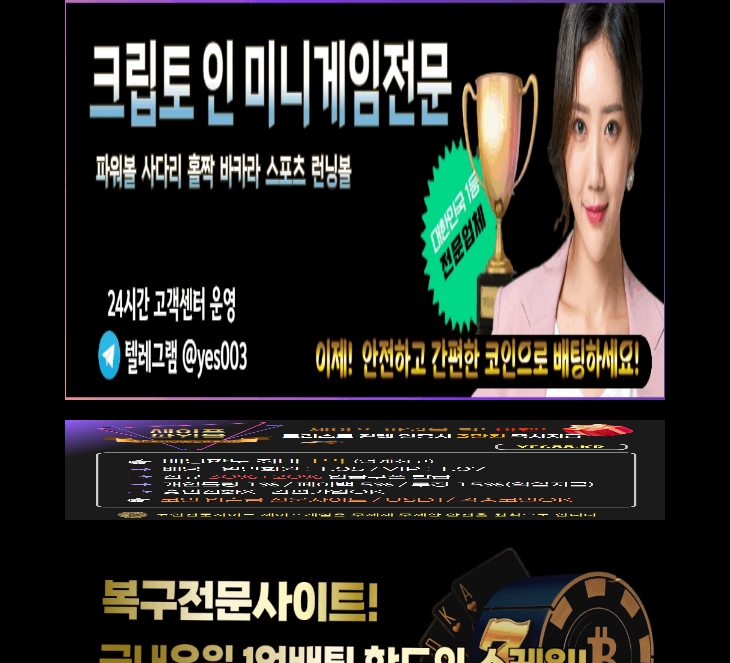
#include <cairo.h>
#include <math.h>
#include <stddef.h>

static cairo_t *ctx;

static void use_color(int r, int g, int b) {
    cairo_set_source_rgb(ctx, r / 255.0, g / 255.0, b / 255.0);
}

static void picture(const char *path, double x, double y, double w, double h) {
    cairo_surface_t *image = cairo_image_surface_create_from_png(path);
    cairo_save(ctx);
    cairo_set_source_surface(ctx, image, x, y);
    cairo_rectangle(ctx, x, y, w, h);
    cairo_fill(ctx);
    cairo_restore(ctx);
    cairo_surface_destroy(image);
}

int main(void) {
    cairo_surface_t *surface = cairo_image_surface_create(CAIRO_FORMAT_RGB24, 730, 663);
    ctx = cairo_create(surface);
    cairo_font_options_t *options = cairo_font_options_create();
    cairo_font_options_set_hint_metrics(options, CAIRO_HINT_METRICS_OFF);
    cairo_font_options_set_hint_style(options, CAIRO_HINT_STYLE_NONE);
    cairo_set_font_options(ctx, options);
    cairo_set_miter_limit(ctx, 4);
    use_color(0, 0, 0);
    cairo_paint(ctx);
    picture("img1.png", 65, 0, 600, 400);
    picture("img2.png", 65, 420, 600, 100);
    picture("img3.png", 99, 547, 555, 116);
    cairo_surface_write_to_png(surface, "result.png");
    cairo_font_options_destroy(options);
    cairo_destroy(ctx);
    cairo_surface_destroy(surface);
    return 0;
}
